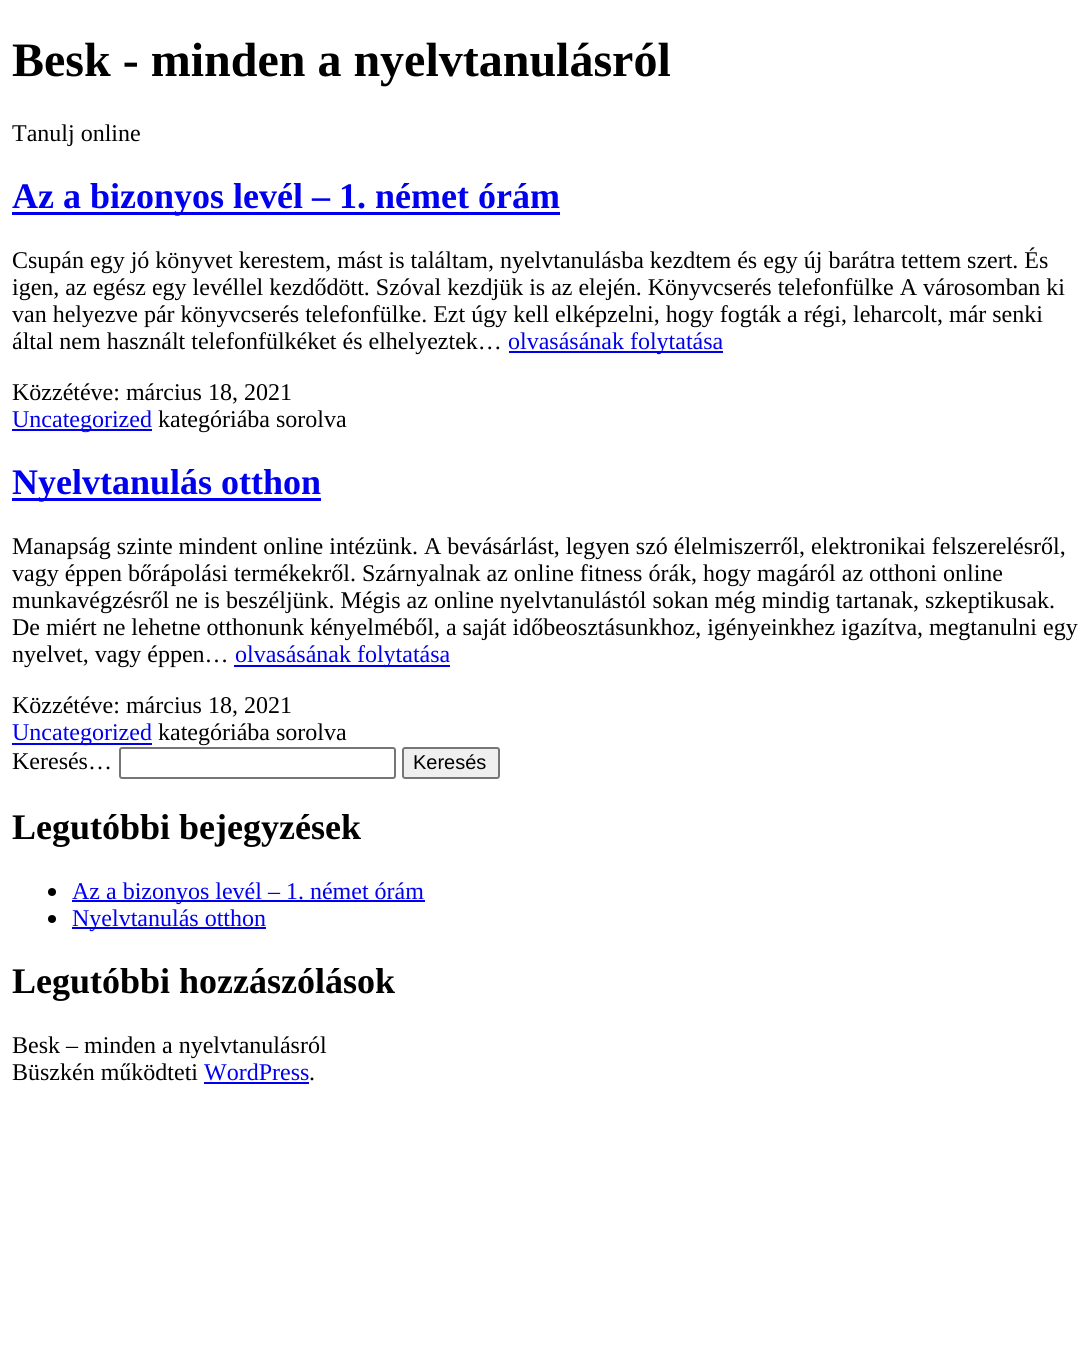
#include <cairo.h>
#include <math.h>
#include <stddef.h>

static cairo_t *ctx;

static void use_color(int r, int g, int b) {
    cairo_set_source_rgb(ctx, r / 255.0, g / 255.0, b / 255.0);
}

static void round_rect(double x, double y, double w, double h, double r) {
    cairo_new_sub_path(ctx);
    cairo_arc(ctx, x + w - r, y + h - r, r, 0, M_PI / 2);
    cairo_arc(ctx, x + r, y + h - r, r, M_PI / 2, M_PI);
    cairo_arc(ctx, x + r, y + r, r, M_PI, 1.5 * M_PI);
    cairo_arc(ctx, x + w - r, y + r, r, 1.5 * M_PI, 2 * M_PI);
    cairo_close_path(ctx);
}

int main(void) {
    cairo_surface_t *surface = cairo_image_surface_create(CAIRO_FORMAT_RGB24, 1092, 1357);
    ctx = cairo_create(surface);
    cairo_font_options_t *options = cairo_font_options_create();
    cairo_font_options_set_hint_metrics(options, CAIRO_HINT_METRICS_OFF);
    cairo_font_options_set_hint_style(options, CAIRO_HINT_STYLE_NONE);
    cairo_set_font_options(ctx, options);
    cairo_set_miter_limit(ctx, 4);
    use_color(255, 255, 255);
    cairo_paint(ctx);
    cairo_select_font_face(ctx, "Liberation Serif", CAIRO_FONT_SLANT_NORMAL, CAIRO_FONT_WEIGHT_BOLD);
    cairo_set_font_size(ctx, 48);
    use_color(0, 0, 0);
    cairo_move_to(ctx, 12, 76);
    cairo_show_text(ctx, "Besk - minden a nyelvtanulásról");
    cairo_select_font_face(ctx, "Liberation Serif", CAIRO_FONT_SLANT_NORMAL, CAIRO_FONT_WEIGHT_NORMAL);
    cairo_set_font_size(ctx, 24);
    cairo_move_to(ctx, 12, 141);
    cairo_show_text(ctx, "Tanulj online");
    use_color(0, 0, 238);
    cairo_rectangle(ctx, 12, 212, 548, 3);
    cairo_fill(ctx);
    cairo_select_font_face(ctx, "Liberation Serif", CAIRO_FONT_SLANT_NORMAL, CAIRO_FONT_WEIGHT_BOLD);
    cairo_set_font_size(ctx, 36);
    cairo_move_to(ctx, 12, 208);
    cairo_show_text(ctx, "Az a bizonyos levél – 1. német órám");
    cairo_select_font_face(ctx, "Liberation Serif", CAIRO_FONT_SLANT_NORMAL, CAIRO_FONT_WEIGHT_NORMAL);
    cairo_set_font_size(ctx, 24);
    use_color(0, 0, 0);
    cairo_move_to(ctx, 12, 268);
    cairo_show_text(ctx, "Csupán egy jó könyvet kerestem, mást is találtam, nyelvtanulásba kezdtem és egy új barátra tettem szert. És");
    cairo_move_to(ctx, 12, 295);
    cairo_show_text(ctx, "igen, az egész egy levéllel kezdődött. Szóval kezdjük is az elején. Könyvcserés telefonfülke A városomban ki");
    cairo_move_to(ctx, 12, 322);
    cairo_show_text(ctx, "van helyezve pár könyvcserés telefonfülke. Ezt úgy kell elképzelni, hogy fogták a régi, leharcolt, már senki");
    cairo_move_to(ctx, 12, 349);
    cairo_show_text(ctx, "által nem használt telefonfülkéket és elhelyeztek…");
    use_color(0, 0, 238);
    cairo_rectangle(ctx, 509, 351, 214, 2);
    cairo_fill(ctx);
    cairo_move_to(ctx, 508, 349);
    cairo_show_text(ctx, "olvasásának folytatása");
    use_color(0, 0, 0);
    cairo_move_to(ctx, 12, 400);
    cairo_show_text(ctx, "Közzétéve: március 18, 2021");
    use_color(0, 0, 238);
    cairo_rectangle(ctx, 12, 429, 140, 2);
    cairo_fill(ctx);
    cairo_move_to(ctx, 12, 427);
    cairo_show_text(ctx, "Uncategorized");
    use_color(0, 0, 0);
    cairo_move_to(ctx, 158, 427);
    cairo_show_text(ctx, "kategóriába sorolva");
    use_color(0, 0, 238);
    cairo_rectangle(ctx, 12, 498, 309, 3);
    cairo_fill(ctx);
    cairo_select_font_face(ctx, "Liberation Serif", CAIRO_FONT_SLANT_NORMAL, CAIRO_FONT_WEIGHT_BOLD);
    cairo_set_font_size(ctx, 36);
    cairo_move_to(ctx, 12, 494);
    cairo_show_text(ctx, "Nyelvtanulás otthon");
    cairo_select_font_face(ctx, "Liberation Serif", CAIRO_FONT_SLANT_NORMAL, CAIRO_FONT_WEIGHT_NORMAL);
    cairo_set_font_size(ctx, 24);
    use_color(0, 0, 0);
    cairo_move_to(ctx, 12, 554);
    cairo_show_text(ctx, "Manapság szinte mindent online intézünk. A bevásárlást, legyen szó élelmiszerről, elektronikai felszerelésről,");
    cairo_move_to(ctx, 12, 581);
    cairo_show_text(ctx, "vagy éppen bőrápolási termékekről. Szárnyalnak az online fitness órák, hogy magáról az otthoni online");
    cairo_move_to(ctx, 12, 608);
    cairo_show_text(ctx, "munkavégzésről ne is beszéljünk. Mégis az online nyelvtanulástól sokan még mindig tartanak, szkeptikusak.");
    cairo_move_to(ctx, 12, 635);
    cairo_show_text(ctx, "De miért ne lehetne otthonunk kényelméből, a saját időbeosztásunkhoz, igényeinkhez igazítva, megtanulni egy");
    cairo_move_to(ctx, 12, 662);
    cairo_show_text(ctx, "nyelvet, vagy éppen…");
    use_color(0, 0, 238);
    cairo_rectangle(ctx, 234, 665, 216, 2);
    cairo_fill(ctx);
    cairo_move_to(ctx, 235, 662);
    cairo_show_text(ctx, "olvasásának folytatása");
    use_color(0, 0, 0);
    cairo_move_to(ctx, 12, 713);
    cairo_show_text(ctx, "Közzétéve: március 18, 2021");
    use_color(0, 0, 238);
    cairo_rectangle(ctx, 12, 743, 140, 2);
    cairo_fill(ctx);
    cairo_move_to(ctx, 12, 740);
    cairo_show_text(ctx, "Uncategorized");
    use_color(0, 0, 0);
    cairo_move_to(ctx, 158, 740);
    cairo_show_text(ctx, "kategóriába sorolva");
    cairo_move_to(ctx, 12, 769);
    cairo_show_text(ctx, "Keresés…");
    round_rect(120, 748, 275, 30, 2);
    use_color(118, 118, 118);
    cairo_stroke(ctx);
    use_color(239, 239, 239);
    round_rect(403, 748, 96, 30, 2);
    cairo_fill_preserve(ctx);
    use_color(118, 118, 118);
    cairo_stroke(ctx);
    cairo_select_font_face(ctx, "Liberation Sans", CAIRO_FONT_SLANT_NORMAL, CAIRO_FONT_WEIGHT_NORMAL);
    cairo_set_font_size(ctx, 20);
    use_color(0, 0, 0);
    cairo_move_to(ctx, 413, 769);
    cairo_show_text(ctx, "Keresés");
    cairo_select_font_face(ctx, "Liberation Serif", CAIRO_FONT_SLANT_NORMAL, CAIRO_FONT_WEIGHT_BOLD);
    cairo_set_font_size(ctx, 36);
    cairo_move_to(ctx, 12, 839);
    cairo_show_text(ctx, "Legutóbbi bejegyzések");
    cairo_new_path(ctx);
    cairo_arc(ctx, 52, 892, 4, 0, 2 * M_PI);
    cairo_fill(ctx);
    use_color(0, 0, 238);
    cairo_rectangle(ctx, 72, 900, 353, 2);
    cairo_fill(ctx);
    cairo_select_font_face(ctx, "Liberation Serif", CAIRO_FONT_SLANT_NORMAL, CAIRO_FONT_WEIGHT_NORMAL);
    cairo_set_font_size(ctx, 24);
    cairo_move_to(ctx, 72, 899);
    cairo_show_text(ctx, "Az a bizonyos levél – 1. német órám");
    use_color(0, 0, 0);
    cairo_new_path(ctx);
    cairo_arc(ctx, 52, 919, 4, 0, 2 * M_PI);
    cairo_fill(ctx);
    use_color(0, 0, 238);
    cairo_rectangle(ctx, 72, 927, 194, 2);
    cairo_fill(ctx);
    cairo_move_to(ctx, 72, 926);
    cairo_show_text(ctx, "Nyelvtanulás otthon");
    cairo_select_font_face(ctx, "Liberation Serif", CAIRO_FONT_SLANT_NORMAL, CAIRO_FONT_WEIGHT_BOLD);
    cairo_set_font_size(ctx, 36);
    use_color(0, 0, 0);
    cairo_move_to(ctx, 12, 993);
    cairo_show_text(ctx, "Legutóbbi hozzászólások");
    cairo_select_font_face(ctx, "Liberation Serif", CAIRO_FONT_SLANT_NORMAL, CAIRO_FONT_WEIGHT_NORMAL);
    cairo_set_font_size(ctx, 24);
    cairo_move_to(ctx, 12, 1053);
    cairo_show_text(ctx, "Besk – minden a nyelvtanulásról");
    cairo_move_to(ctx, 12, 1080);
    cairo_show_text(ctx, "Büszkén működteti");
    use_color(0, 0, 238);
    cairo_move_to(ctx, 204, 1080);
    cairo_show_text(ctx, "WordPress");
    cairo_rectangle(ctx, 204, 1082, 105, 2);
    cairo_fill(ctx);
    use_color(0, 0, 0);
    cairo_move_to(ctx, 309, 1080);
    cairo_show_text(ctx, ".");
    cairo_surface_write_to_png(surface, "result.png");
    cairo_font_options_destroy(options);
    cairo_destroy(ctx);
    cairo_surface_destroy(surface);
    return 0;
}
